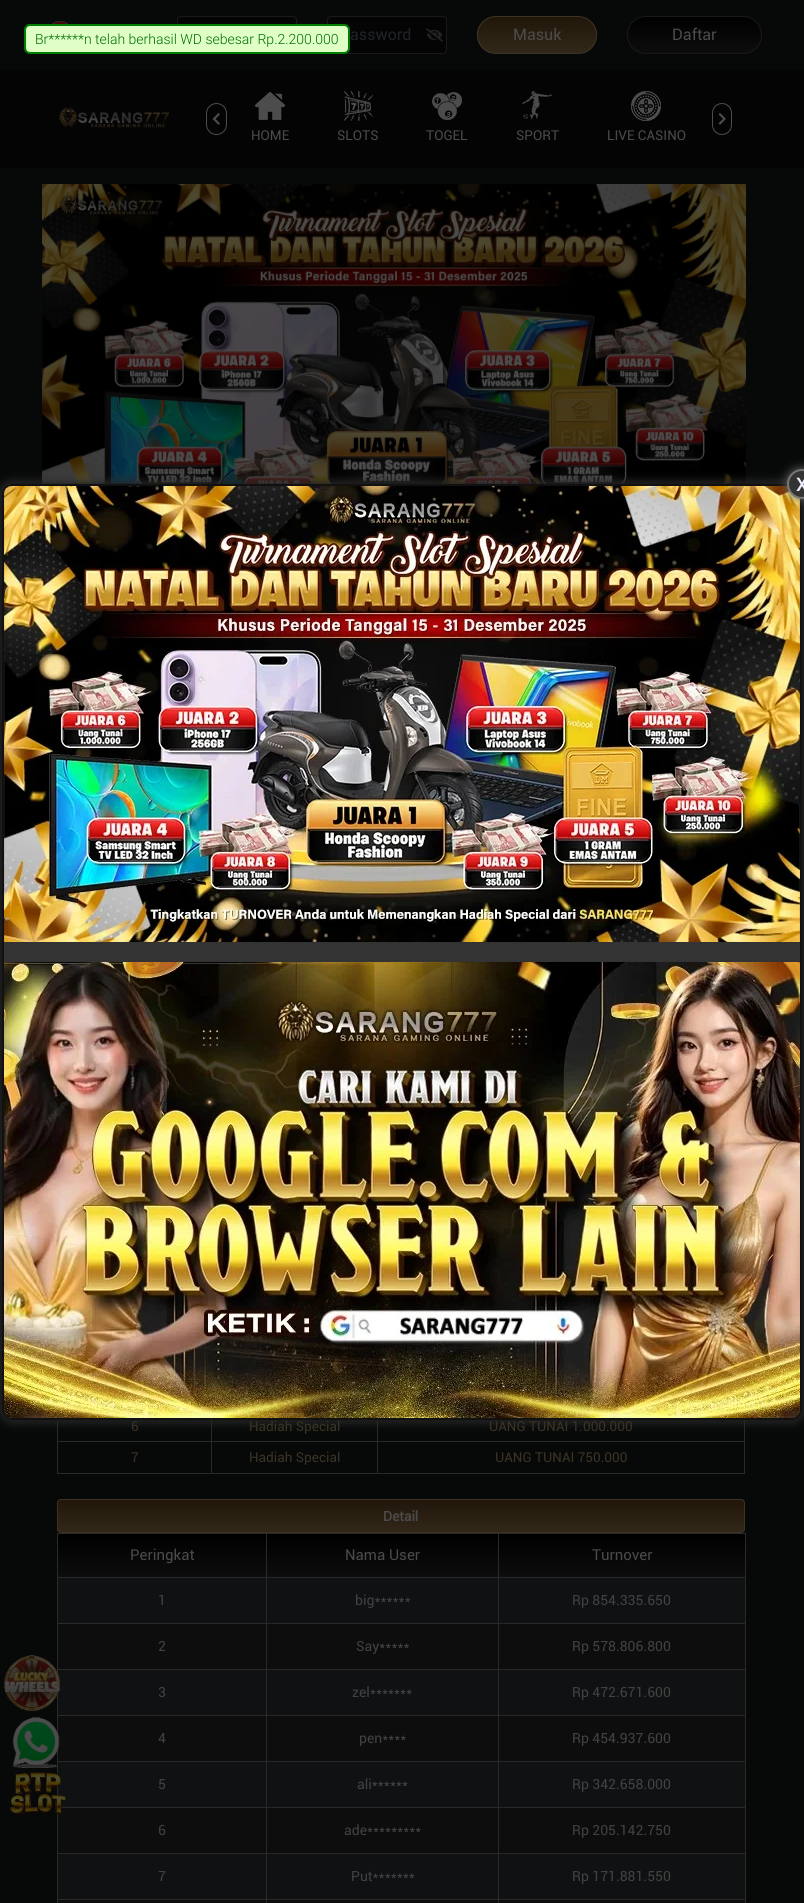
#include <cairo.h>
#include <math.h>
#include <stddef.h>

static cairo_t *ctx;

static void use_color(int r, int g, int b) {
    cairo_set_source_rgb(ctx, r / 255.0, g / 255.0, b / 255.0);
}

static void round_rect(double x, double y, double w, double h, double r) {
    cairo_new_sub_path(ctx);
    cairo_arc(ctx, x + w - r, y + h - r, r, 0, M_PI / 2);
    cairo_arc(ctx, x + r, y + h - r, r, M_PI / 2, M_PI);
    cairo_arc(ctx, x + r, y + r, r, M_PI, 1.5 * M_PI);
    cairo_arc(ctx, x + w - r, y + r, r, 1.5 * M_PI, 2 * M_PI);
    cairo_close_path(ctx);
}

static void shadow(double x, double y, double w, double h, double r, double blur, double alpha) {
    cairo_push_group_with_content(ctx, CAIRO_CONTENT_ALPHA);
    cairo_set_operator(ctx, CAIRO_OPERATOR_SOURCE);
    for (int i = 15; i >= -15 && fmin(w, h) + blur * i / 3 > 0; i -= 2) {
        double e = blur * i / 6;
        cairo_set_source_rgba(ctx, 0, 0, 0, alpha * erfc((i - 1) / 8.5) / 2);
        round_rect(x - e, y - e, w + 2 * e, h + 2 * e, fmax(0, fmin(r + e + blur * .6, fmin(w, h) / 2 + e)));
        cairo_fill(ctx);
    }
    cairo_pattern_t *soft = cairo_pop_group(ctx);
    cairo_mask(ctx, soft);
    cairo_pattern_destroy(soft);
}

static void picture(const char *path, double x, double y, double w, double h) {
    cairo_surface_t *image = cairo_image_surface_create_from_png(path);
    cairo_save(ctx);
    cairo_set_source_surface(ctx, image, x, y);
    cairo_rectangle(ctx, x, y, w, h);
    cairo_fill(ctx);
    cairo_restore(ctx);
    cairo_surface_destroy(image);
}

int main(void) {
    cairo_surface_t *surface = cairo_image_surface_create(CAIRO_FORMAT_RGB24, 804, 1903);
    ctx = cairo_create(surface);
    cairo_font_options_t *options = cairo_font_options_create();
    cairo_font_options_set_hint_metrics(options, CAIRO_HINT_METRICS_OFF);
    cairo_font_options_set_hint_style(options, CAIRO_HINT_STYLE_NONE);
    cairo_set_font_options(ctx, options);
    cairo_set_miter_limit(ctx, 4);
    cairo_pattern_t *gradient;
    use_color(7, 8, 8);
    cairo_paint(ctx);
    use_color(69, 0, 5);
    cairo_new_path(ctx);
    cairo_move_to(ctx, 47, 36);
    cairo_curve_to(ctx, 46.5, 31, 50, 23.5, 55, 22);
    cairo_line_to(ctx, 65, 22);
    cairo_curve_to(ctx, 70, 23.5, 73.5, 31, 73, 36);
    cairo_close_path(ctx);
    cairo_fill(ctx);
    cairo_new_path(ctx);
    cairo_move_to(ctx, 60, 21.5);
    cairo_curve_to(ctx, 76.5, 21.5, 76.5, 48.5, 60, 48.5);
    cairo_curve_to(ctx, 43.5, 48.5, 43.5, 21.5, 60, 21.5);
    cairo_close_path(ctx);
    use_color(41, 41, 41);
    cairo_set_line_width(ctx, 1);
    cairo_stroke(ctx);
    use_color(4, 4, 5);
    round_rect(177.5, 16.5, 119, 37, 3.5);
    cairo_fill_preserve(ctx);
    use_color(25, 26, 28);
    cairo_stroke(ctx);
    use_color(4, 4, 5);
    round_rect(327.5, 16.5, 119, 37, 3.5);
    cairo_fill_preserve(ctx);
    use_color(25, 26, 28);
    cairo_stroke(ctx);
    use_color(223, 255, 199);
    round_rect(25, 25, 324, 28, 5);
    cairo_fill_preserve(ctx);
    use_color(0, 128, 0);
    cairo_set_line_width(ctx, 2);
    cairo_stroke(ctx);
    cairo_select_font_face(ctx, "Roboto Light", CAIRO_FONT_SLANT_NORMAL, CAIRO_FONT_WEIGHT_NORMAL);
    cairo_set_font_size(ctx, 14);
    use_color(0, 109, 2);
    cairo_move_to(ctx, 35, 44);
    cairo_show_text(ctx, "Br******n telah berhasil WD sebesar Rp.2.200.000");
    cairo_select_font_face(ctx, "Roboto", CAIRO_FONT_SLANT_NORMAL, CAIRO_FONT_WEIGHT_NORMAL);
    cairo_set_font_size(ctx, 16);
    use_color(32, 35, 38);
    cairo_move_to(ctx, 350, 40);
    cairo_show_text(ctx, "assword");
    picture("img1.png", 426, 28, 17, 14);
    cairo_save(ctx);
    round_rect(477, 16, 120, 38, 19);
    cairo_clip(ctx);
    gradient = cairo_pattern_create_linear(537, 17, 537, 53);
    cairo_pattern_add_color_stop_rgba(gradient, 0, 0.129, 0.086, 0.035, 1);
    cairo_pattern_add_color_stop_rgba(gradient, 1, 0.196, 0.157, 0.102, 1);
    cairo_set_source(ctx, gradient);
    cairo_pattern_destroy(gradient);
    cairo_rectangle(ctx, 477, 17, 120, 36);
    cairo_fill(ctx);
    cairo_restore(ctx);
    round_rect(477.5, 16.5, 119, 37, 18.5);
    use_color(59, 52, 37);
    cairo_set_line_width(ctx, 1);
    cairo_stroke(ctx);
    use_color(74, 75, 75);
    cairo_move_to(ctx, 513, 40);
    cairo_show_text(ctx, "Masuk");
    cairo_save(ctx);
    round_rect(627, 16, 135, 38, 19);
    cairo_clip(ctx);
    gradient = cairo_pattern_create_linear(695, 17, 695, 53);
    cairo_pattern_add_color_stop_rgba(gradient, 0, 0, 0, 0, 1);
    cairo_pattern_add_color_stop_rgba(gradient, 1, 0.051, 0.051, 0.051, 1);
    cairo_set_source(ctx, gradient);
    cairo_pattern_destroy(gradient);
    cairo_rectangle(ctx, 627, 17, 135, 36);
    cairo_fill(ctx);
    cairo_restore(ctx);
    round_rect(627.5, 16.5, 134, 37, 18.5);
    use_color(25, 25, 25);
    cairo_stroke(ctx);
    use_color(74, 75, 75);
    cairo_move_to(ctx, 672, 40);
    cairo_show_text(ctx, "Daftar");
    use_color(4, 4, 5);
    cairo_rectangle(ctx, 0, 70, 804, 98);
    cairo_fill(ctx);
    picture("img2.png", 59, 107, 111, 21);
    round_rect(206.5, 103.5, 20, 31, 10);
    use_color(77, 77, 77);
    cairo_stroke(ctx);
    picture("img3.png", 212, 113, 8, 12);
    picture("img4.png", 255, 92, 30, 28);
    cairo_set_font_size(ctx, 13.6);
    use_color(74, 75, 75);
    cairo_move_to(ctx, 251, 140);
    cairo_show_text(ctx, "HOME");
    picture("img5.png", 344, 91, 29, 30);
    cairo_move_to(ctx, 337, 140);
    cairo_show_text(ctx, "SLOTS");
    picture("img6.png", 432, 92, 30, 28);
    cairo_move_to(ctx, 426, 140);
    cairo_show_text(ctx, "TOGEL");
    picture("img7.png", 522, 91, 30, 28);
    cairo_move_to(ctx, 516, 140);
    cairo_show_text(ctx, "SPORT");
    picture("img8.png", 631, 91, 30, 30);
    cairo_move_to(ctx, 607, 140);
    cairo_show_text(ctx, "LIVE CASINO");
    round_rect(712.5, 103.5, 19, 31, 9.5);
    use_color(77, 77, 77);
    cairo_stroke(ctx);
    picture("img9.png", 718, 113, 8, 12);
    picture("img15.png", 42, 184, 704, 300);
    use_color(41, 41, 41);
    cairo_rectangle(ctx, 57, 1441, 320, 1);
    cairo_fill(ctx);
    cairo_rectangle(ctx, 57, 1420, 1, 22);
    cairo_fill(ctx);
    cairo_rectangle(ctx, 211, 1420, 1, 22);
    cairo_fill(ctx);
    cairo_rectangle(ctx, 744, 1420, 1, 54);
    cairo_fill(ctx);
    cairo_rectangle(ctx, 377, 1441, 368, 1);
    cairo_fill(ctx);
    cairo_rectangle(ctx, 377, 1420, 1, 22);
    cairo_fill(ctx);
    use_color(102, 102, 102);
    shadow(2, 484, 800, 936, 10, 5, 1);
    use_color(51, 51, 51);
    round_rect(2, 484, 800, 936, 10);
    cairo_fill(ctx);
    cairo_save(ctx);
    cairo_set_fill_rule(ctx, CAIRO_FILL_RULE_EVEN_ODD);
    cairo_new_path(ctx);
    cairo_move_to(ctx, 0, 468);
    cairo_line_to(ctx, 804, 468);
    cairo_line_to(ctx, 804, 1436);
    cairo_line_to(ctx, 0, 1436);
    cairo_close_path(ctx);
    cairo_move_to(ctx, 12, 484);
    cairo_line_to(ctx, 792, 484);
    cairo_curve_to(ctx, 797.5, 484, 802, 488.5, 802, 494);
    cairo_line_to(ctx, 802, 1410);
    cairo_curve_to(ctx, 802, 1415.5, 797.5, 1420, 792, 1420);
    cairo_line_to(ctx, 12, 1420);
    cairo_curve_to(ctx, 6.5, 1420, 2, 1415.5, 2, 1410);
    cairo_line_to(ctx, 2, 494);
    cairo_curve_to(ctx, 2, 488.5, 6.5, 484, 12, 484);
    cairo_close_path(ctx);
    cairo_clip(ctx);
    use_color(0, 0, 0);
    shadow(2, 484, 800, 936, 10, 5, 1);
    cairo_restore(ctx);
    round_rect(3, 485, 798, 934, 9);
    use_color(17, 17, 17);
    cairo_set_line_width(ctx, 2);
    cairo_stroke(ctx);
    picture("img10.png", 4, 486, 796, 456);
    picture("img11.png", 4, 962, 796, 456);
    use_color(102, 102, 102);
    shadow(787, 469, 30, 30, 15, 5, 1);
    use_color(51, 51, 51);
    cairo_arc(ctx, 802, 484, 14, 0, 2 * M_PI);
    cairo_fill_preserve(ctx);
    use_color(119, 119, 119);
    cairo_stroke(ctx);
    cairo_select_font_face(ctx, "Roboto", CAIRO_FONT_SLANT_NORMAL, CAIRO_FONT_WEIGHT_BOLD);
    cairo_set_font_size(ctx, 18);
    use_color(238, 238, 255);
    cairo_move_to(ctx, 796, 491);
    cairo_show_text(ctx, "X");
    use_color(41, 41, 41);
    cairo_rectangle(ctx, 57, 1533, 689, 1);
    cairo_fill(ctx);
    cairo_rectangle(ctx, 57, 1533, 1, 370);
    cairo_fill(ctx);
    use_color(13, 13, 13);
    cairo_rectangle(ctx, 58, 1624, 687, 45);
    cairo_fill(ctx);
    use_color(15, 17, 19);
    cairo_rectangle(ctx, 58, 1670, 687, 45);
    cairo_fill(ctx);
    use_color(13, 13, 13);
    cairo_rectangle(ctx, 58, 1900, 688, 3);
    cairo_fill(ctx);
    use_color(41, 41, 41);
    cairo_rectangle(ctx, 745, 1533, 1, 370);
    cairo_fill(ctx);
    cairo_rectangle(ctx, 498, 1669, 248, 1);
    cairo_fill(ctx);
    cairo_rectangle(ctx, 498, 1715, 248, 1);
    cairo_fill(ctx);
    use_color(13, 13, 13);
    cairo_rectangle(ctx, 58, 1716, 687, 45);
    cairo_fill(ctx);
    use_color(41, 41, 41);
    cairo_rectangle(ctx, 498, 1761, 248, 1);
    cairo_fill(ctx);
    use_color(15, 17, 19);
    cairo_rectangle(ctx, 58, 1762, 687, 45);
    cairo_fill(ctx);
    use_color(41, 41, 41);
    cairo_rectangle(ctx, 498, 1807, 248, 1);
    cairo_fill(ctx);
    use_color(13, 13, 13);
    cairo_rectangle(ctx, 58, 1808, 687, 45);
    cairo_fill(ctx);
    use_color(41, 41, 41);
    cairo_rectangle(ctx, 498, 1853, 248, 1);
    cairo_fill(ctx);
    use_color(15, 17, 19);
    cairo_rectangle(ctx, 58, 1854, 687, 45);
    cairo_fill(ctx);
    use_color(41, 41, 41);
    cairo_rectangle(ctx, 498, 1899, 248, 1);
    cairo_fill(ctx);
    cairo_rectangle(ctx, 498, 1899, 1, 4);
    cairo_fill(ctx);
    cairo_rectangle(ctx, 266, 1899, 233, 1);
    cairo_fill(ctx);
    cairo_rectangle(ctx, 498, 1853, 1, 47);
    cairo_fill(ctx);
    cairo_rectangle(ctx, 266, 1853, 233, 1);
    cairo_fill(ctx);
    cairo_rectangle(ctx, 498, 1807, 1, 47);
    cairo_fill(ctx);
    cairo_rectangle(ctx, 266, 1807, 233, 1);
    cairo_fill(ctx);
    cairo_rectangle(ctx, 498, 1761, 1, 47);
    cairo_fill(ctx);
    cairo_rectangle(ctx, 266, 1761, 233, 1);
    cairo_fill(ctx);
    cairo_rectangle(ctx, 498, 1715, 1, 47);
    cairo_fill(ctx);
    cairo_rectangle(ctx, 266, 1715, 233, 1);
    cairo_fill(ctx);
    cairo_rectangle(ctx, 498, 1669, 1, 47);
    cairo_fill(ctx);
    cairo_rectangle(ctx, 266, 1669, 233, 1);
    cairo_fill(ctx);
    cairo_rectangle(ctx, 266, 1899, 1, 4);
    cairo_fill(ctx);
    cairo_rectangle(ctx, 57, 1899, 210, 1);
    cairo_fill(ctx);
    cairo_rectangle(ctx, 266, 1853, 1, 47);
    cairo_fill(ctx);
    cairo_rectangle(ctx, 57, 1853, 210, 1);
    cairo_fill(ctx);
    cairo_rectangle(ctx, 266, 1807, 1, 47);
    cairo_fill(ctx);
    cairo_rectangle(ctx, 57, 1807, 210, 1);
    cairo_fill(ctx);
    cairo_rectangle(ctx, 266, 1761, 1, 47);
    cairo_fill(ctx);
    cairo_rectangle(ctx, 57, 1761, 210, 1);
    cairo_fill(ctx);
    cairo_rectangle(ctx, 266, 1715, 1, 47);
    cairo_fill(ctx);
    cairo_rectangle(ctx, 57, 1715, 210, 1);
    cairo_fill(ctx);
    cairo_rectangle(ctx, 266, 1669, 1, 47);
    cairo_fill(ctx);
    cairo_rectangle(ctx, 57, 1669, 210, 1);
    cairo_fill(ctx);
    picture("img12.png", 4, 1655, 56, 56);
    picture("img13.png", 12, 1717, 48, 51);
    picture("img14.png", 10, 1772, 56, 43);
    cairo_select_font_face(ctx, "Roboto", CAIRO_FONT_SLANT_NORMAL, CAIRO_FONT_WEIGHT_NORMAL);
    cairo_set_font_size(ctx, 13.6);
    use_color(59, 52, 37);
    cairo_move_to(ctx, 131, 1431);
    cairo_show_text(ctx, "6");
    cairo_move_to(ctx, 249, 1431);
    cairo_show_text(ctx, "Hadiah Special");
    cairo_move_to(ctx, 489, 1431);
    cairo_show_text(ctx, "UANG TUNAI 1.000.000");
    use_color(41, 41, 41);
    cairo_rectangle(ctx, 57, 1473, 688, 1);
    cairo_fill(ctx);
    cairo_rectangle(ctx, 57, 1442, 1, 32);
    cairo_fill(ctx);
    use_color(59, 52, 37);
    cairo_move_to(ctx, 131, 1462);
    cairo_show_text(ctx, "7");
    use_color(41, 41, 41);
    cairo_rectangle(ctx, 211, 1442, 1, 32);
    cairo_fill(ctx);
    use_color(59, 52, 37);
    cairo_move_to(ctx, 249, 1462);
    cairo_show_text(ctx, "Hadiah Special");
    use_color(41, 41, 41);
    cairo_rectangle(ctx, 377, 1442, 1, 32);
    cairo_fill(ctx);
    use_color(59, 52, 37);
    cairo_move_to(ctx, 495, 1462);
    cairo_show_text(ctx, "UANG TUNAI 750.000");
    cairo_save(ctx);
    round_rect(57, 1499, 688, 34, 4);
    cairo_clip(ctx);
    gradient = cairo_pattern_create_linear(401, 1500, 401, 1532);
    cairo_pattern_add_color_stop_rgba(gradient, 0, 0.129, 0.086, 0.035, 1);
    cairo_pattern_add_color_stop_rgba(gradient, 1, 0.196, 0.157, 0.102, 1);
    cairo_set_source(ctx, gradient);
    cairo_pattern_destroy(gradient);
    cairo_rectangle(ctx, 57, 1500, 688, 32);
    cairo_fill(ctx);
    cairo_restore(ctx);
    round_rect(57.5, 1499.5, 687, 33, 3.5);
    cairo_set_line_width(ctx, 1);
    cairo_stroke(ctx);
    cairo_select_font_face(ctx, "Roboto", CAIRO_FONT_SLANT_NORMAL, CAIRO_FONT_WEIGHT_BOLD);
    use_color(74, 75, 75);
    cairo_move_to(ctx, 383, 1521);
    cairo_show_text(ctx, "Detail");
    gradient = cairo_pattern_create_linear(402, 1534, 402, 1577);
    cairo_pattern_add_color_stop_rgba(gradient, 0, 0, 0, 0, 1);
    cairo_pattern_add_color_stop_rgba(gradient, 1, 0.051, 0.051, 0.051, 1);
    cairo_set_source(ctx, gradient);
    cairo_pattern_destroy(gradient);
    cairo_rectangle(ctx, 58, 1534, 687, 43);
    cairo_fill(ctx);
    use_color(15, 17, 19);
    cairo_rectangle(ctx, 58, 1578, 687, 45);
    cairo_fill(ctx);
    use_color(41, 41, 41);
    cairo_rectangle(ctx, 498, 1623, 248, 1);
    cairo_fill(ctx);
    cairo_rectangle(ctx, 498, 1623, 1, 47);
    cairo_fill(ctx);
    cairo_rectangle(ctx, 266, 1623, 233, 1);
    cairo_fill(ctx);
    cairo_rectangle(ctx, 498, 1577, 1, 47);
    cairo_fill(ctx);
    cairo_rectangle(ctx, 498, 1577, 248, 1);
    cairo_fill(ctx);
    cairo_rectangle(ctx, 498, 1533, 1, 45);
    cairo_fill(ctx);
    cairo_rectangle(ctx, 266, 1623, 1, 47);
    cairo_fill(ctx);
    cairo_rectangle(ctx, 57, 1623, 210, 1);
    cairo_fill(ctx);
    cairo_rectangle(ctx, 266, 1577, 1, 47);
    cairo_fill(ctx);
    cairo_rectangle(ctx, 266, 1577, 233, 1);
    cairo_fill(ctx);
    cairo_rectangle(ctx, 266, 1533, 1, 45);
    cairo_fill(ctx);
    cairo_rectangle(ctx, 57, 1577, 210, 1);
    cairo_fill(ctx);
    cairo_select_font_face(ctx, "Roboto", CAIRO_FONT_SLANT_NORMAL, CAIRO_FONT_WEIGHT_NORMAL);
    cairo_set_font_size(ctx, 15);
    use_color(74, 75, 75);
    cairo_move_to(ctx, 130, 1560);
    cairo_show_text(ctx, "Peringkat");
    cairo_move_to(ctx, 345, 1560);
    cairo_show_text(ctx, "Nama User");
    cairo_move_to(ctx, 592, 1560);
    cairo_show_text(ctx, "Turnover");
    cairo_set_font_size(ctx, 14);
    use_color(66, 66, 66);
    cairo_move_to(ctx, 158, 1605);
    cairo_show_text(ctx, "1");
    cairo_move_to(ctx, 355, 1605);
    cairo_show_text(ctx, "big******");
    cairo_move_to(ctx, 572, 1605);
    cairo_show_text(ctx, "Rp 854.335.650");
    cairo_move_to(ctx, 158, 1651);
    cairo_show_text(ctx, "2");
    cairo_move_to(ctx, 356, 1651);
    cairo_show_text(ctx, "Say*****");
    cairo_move_to(ctx, 572, 1651);
    cairo_show_text(ctx, "Rp 578.806.800");
    cairo_move_to(ctx, 158, 1697);
    cairo_show_text(ctx, "3");
    cairo_move_to(ctx, 352, 1697);
    cairo_show_text(ctx, "zel*******");
    cairo_move_to(ctx, 572, 1697);
    cairo_show_text(ctx, "Rp 472.671.600");
    cairo_move_to(ctx, 158, 1743);
    cairo_show_text(ctx, "4");
    cairo_move_to(ctx, 359, 1743);
    cairo_show_text(ctx, "pen****");
    cairo_move_to(ctx, 572, 1743);
    cairo_show_text(ctx, "Rp 454.937.600");
    cairo_move_to(ctx, 158, 1789);
    cairo_show_text(ctx, "5");
    cairo_move_to(ctx, 357, 1789);
    cairo_show_text(ctx, "ali******");
    cairo_move_to(ctx, 572, 1789);
    cairo_show_text(ctx, "Rp 342.658.000");
    cairo_move_to(ctx, 158, 1835);
    cairo_show_text(ctx, "6");
    cairo_move_to(ctx, 344, 1835);
    cairo_show_text(ctx, "ade*********");
    cairo_move_to(ctx, 572, 1835);
    cairo_show_text(ctx, "Rp 205.142.750");
    cairo_move_to(ctx, 158, 1881);
    cairo_show_text(ctx, "7");
    cairo_move_to(ctx, 351, 1881);
    cairo_show_text(ctx, "Put*******");
    cairo_move_to(ctx, 572, 1881);
    cairo_show_text(ctx, "Rp 171.881.550");
    cairo_surface_write_to_png(surface, "result.png");
    cairo_font_options_destroy(options);
    cairo_destroy(ctx);
    cairo_surface_destroy(surface);
    return 0;
}
